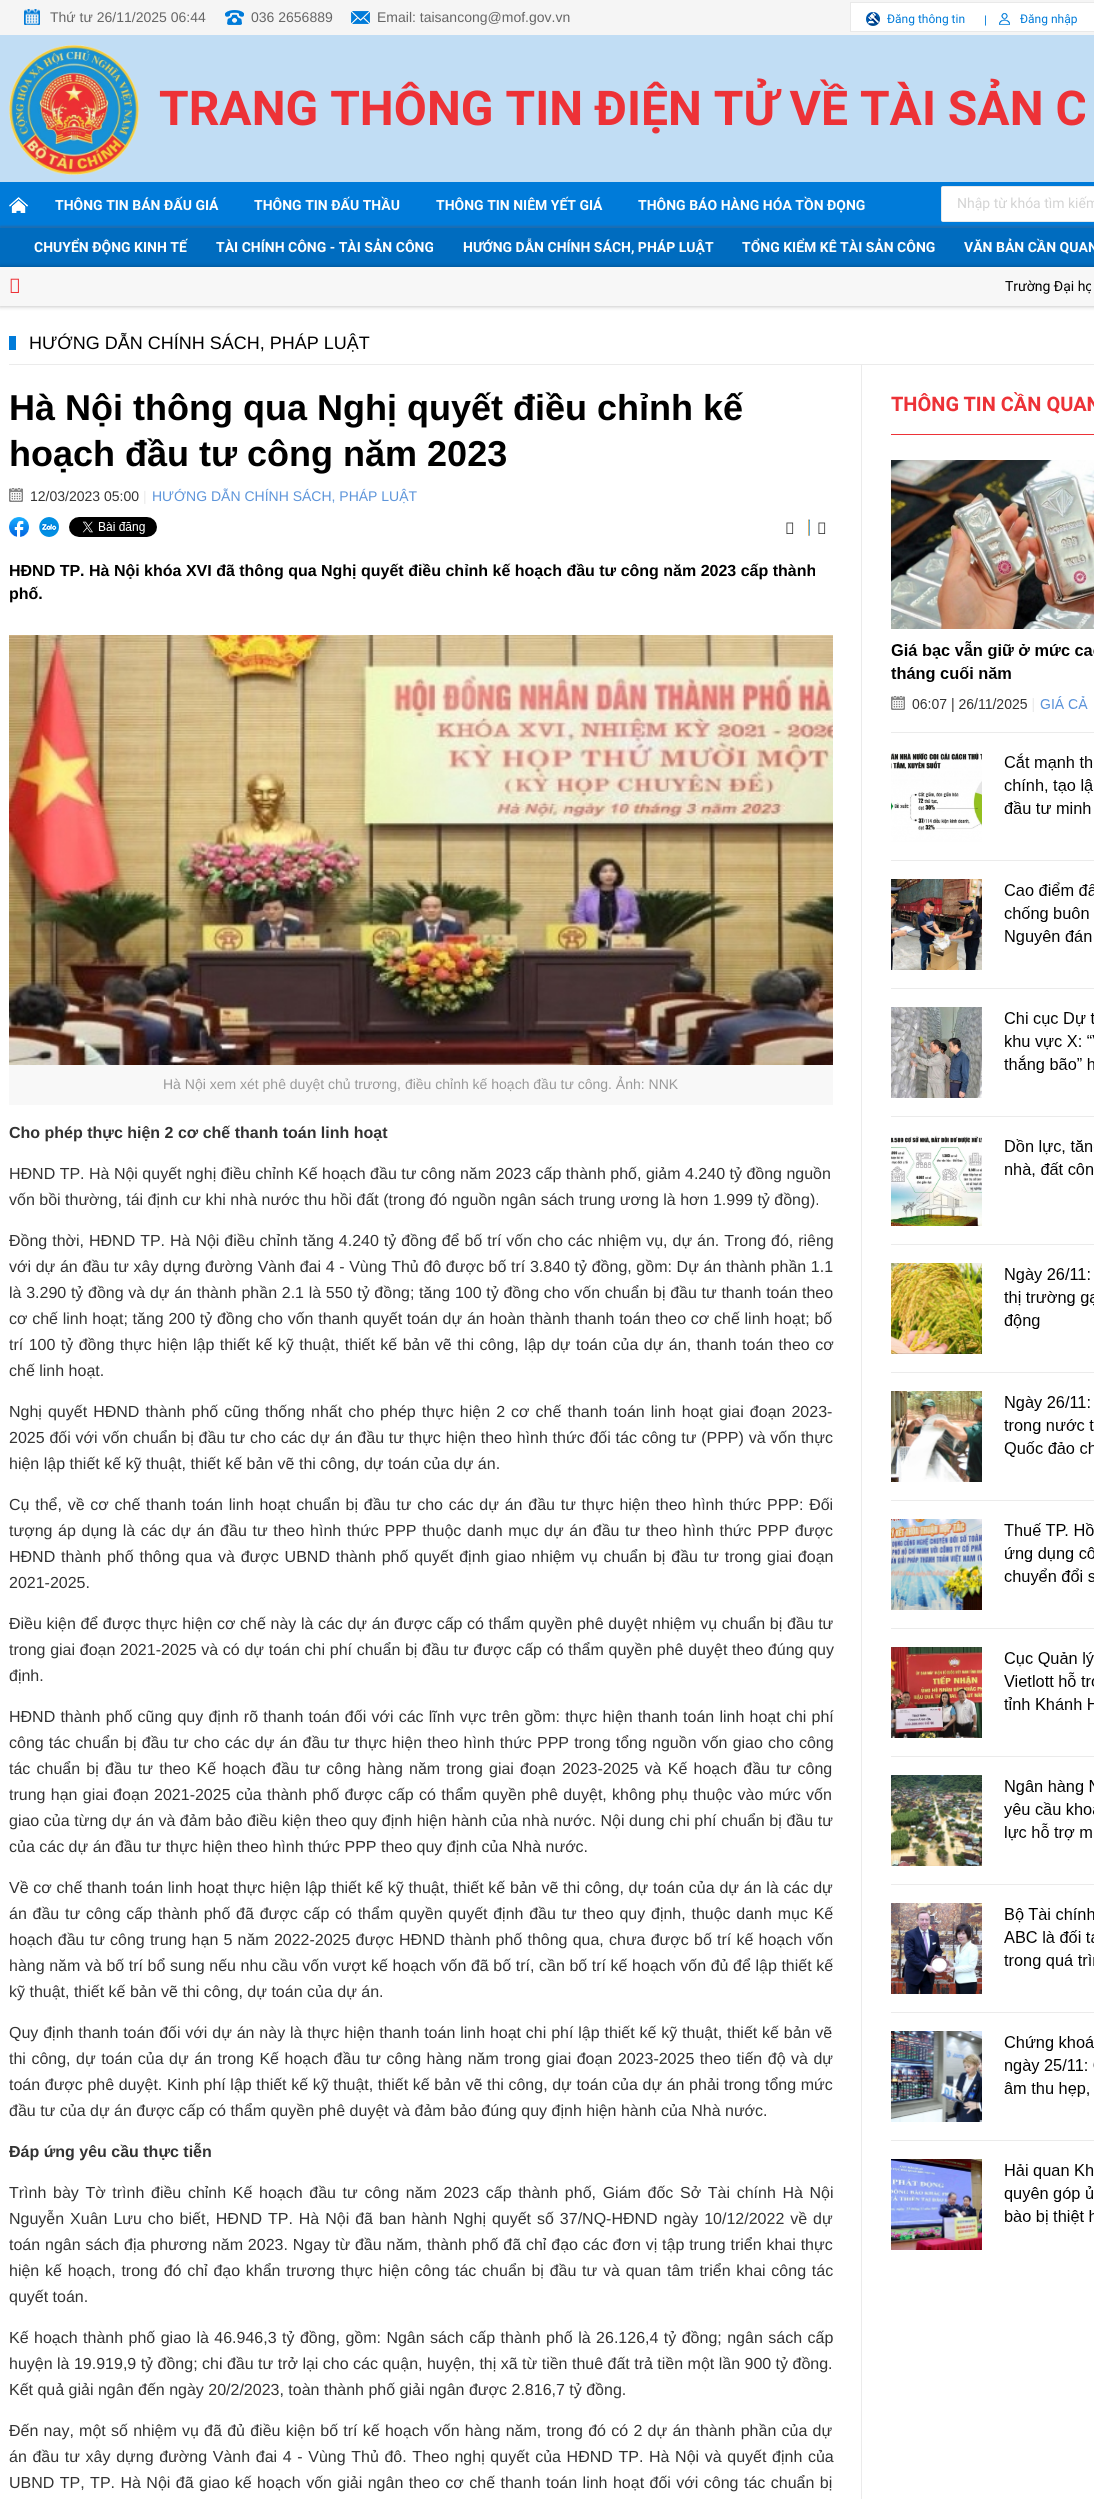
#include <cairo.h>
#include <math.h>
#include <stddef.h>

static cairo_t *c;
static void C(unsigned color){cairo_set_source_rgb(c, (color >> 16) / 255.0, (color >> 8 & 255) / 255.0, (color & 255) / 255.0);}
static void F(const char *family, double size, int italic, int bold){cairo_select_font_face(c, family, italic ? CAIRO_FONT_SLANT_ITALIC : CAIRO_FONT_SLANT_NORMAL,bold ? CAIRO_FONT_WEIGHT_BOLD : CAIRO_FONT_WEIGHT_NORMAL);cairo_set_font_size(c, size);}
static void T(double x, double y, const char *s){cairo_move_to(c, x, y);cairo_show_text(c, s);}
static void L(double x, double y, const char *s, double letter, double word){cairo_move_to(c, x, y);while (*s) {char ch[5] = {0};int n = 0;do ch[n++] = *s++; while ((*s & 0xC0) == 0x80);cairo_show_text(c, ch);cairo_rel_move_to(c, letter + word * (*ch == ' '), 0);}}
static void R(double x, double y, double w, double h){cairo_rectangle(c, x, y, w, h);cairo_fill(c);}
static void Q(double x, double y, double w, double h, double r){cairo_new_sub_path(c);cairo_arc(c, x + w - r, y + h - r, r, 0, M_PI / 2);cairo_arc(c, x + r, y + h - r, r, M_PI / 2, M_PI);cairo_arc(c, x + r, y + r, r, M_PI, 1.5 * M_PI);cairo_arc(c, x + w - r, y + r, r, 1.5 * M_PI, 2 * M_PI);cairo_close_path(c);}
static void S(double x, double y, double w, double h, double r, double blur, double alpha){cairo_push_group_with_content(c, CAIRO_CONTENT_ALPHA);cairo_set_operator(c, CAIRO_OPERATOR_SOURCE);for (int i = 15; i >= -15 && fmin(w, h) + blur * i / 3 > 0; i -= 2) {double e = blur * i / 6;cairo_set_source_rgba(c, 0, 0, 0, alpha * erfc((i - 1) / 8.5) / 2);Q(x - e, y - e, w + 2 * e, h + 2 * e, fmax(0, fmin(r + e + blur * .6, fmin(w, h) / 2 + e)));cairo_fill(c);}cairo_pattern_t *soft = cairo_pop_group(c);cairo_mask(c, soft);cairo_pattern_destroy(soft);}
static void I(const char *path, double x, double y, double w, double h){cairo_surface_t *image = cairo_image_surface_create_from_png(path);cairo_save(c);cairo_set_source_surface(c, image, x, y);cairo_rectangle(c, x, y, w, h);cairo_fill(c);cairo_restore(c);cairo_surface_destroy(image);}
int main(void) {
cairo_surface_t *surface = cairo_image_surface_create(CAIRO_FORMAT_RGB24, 1094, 2499);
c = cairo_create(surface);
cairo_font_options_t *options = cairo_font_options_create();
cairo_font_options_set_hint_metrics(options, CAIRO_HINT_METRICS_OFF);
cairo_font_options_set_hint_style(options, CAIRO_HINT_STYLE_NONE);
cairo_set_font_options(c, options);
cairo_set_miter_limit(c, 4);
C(0xffffff);
cairo_paint(c);
C(0xf5f5f5);
R(0,0,1094,35);
I("1.png",24,9,16,16);
F("Liberation Sans",14,0,0);
C(0x666666);
T(50,22,"Thứ tư 26/11/2025 06:44");
I("2.png",225,10,19,15);
T(251,22,"036 2656889");
I("3.png",351,11,19,13);
T(377,22,"Email: taisancong@mof.gov.vn");
C(0xffffff);
cairo_rectangle(c,850.5,2.5,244,29);
cairo_fill_preserve(c);
C(0xe9e9e9);
cairo_set_line_width(c,1);
cairo_stroke(c);
I("4.png",866,12,14,14);
F("Roboto",12,0,0);
C(0x007bd9);
T(887,23,"Đăng thông tin");
I("5.png",999,13,11,12);
T(984,24,"|");
T(1020,23,"Đăng nhập");
C(0xc1ddf4);
R(0,35,1094,147);
I("6.png",9,45,130,130);
F("Roboto",48,0,1);
C(0xed3237);
T(159,125,"TRANG THÔNG TIN ĐIỆN TỬ VỀ TÀI SẢN C");
C(0x007bd9);
R(0,182,1094,46);
I("7.png",9,197,19,16);
F("Roboto",14,0,1);
C(0xffffff);
T(55,210,"THÔNG TIN BÁN ĐẤU GIÁ");
T(254,210,"THÔNG TIN ĐẤU THẦU");
T(436,210,"THÔNG TIN NIÊM YẾT GIÁ");
T(638,210,"THÔNG BÁO HÀNG HÓA TỒN ĐỌNG");
Q(941.5,186.5,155,35,1.5);
C(0xe9e9e9);
cairo_stroke(c);
C(0xffffff);
R(942,187,152,34);
F("Roboto",14,0,0);
C(0xd3d3d3);
T(957,208,"Nhập từ khóa tìm kiếm");
C(0x684949);
S(0,226,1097,39,0,1,.3);
C(0x006cbf);
R(0,228,1094,39);
F("Roboto",14,0,1);
C(0xffffff);
T(34,252,"CHUYỂN ĐỘNG KINH TẾ");
T(216,252,"TÀI CHÍNH CÔNG - TÀI SẢN CÔNG");
T(463,252,"HƯỚNG DẪN CHÍNH SÁCH, PHÁP LUẬT");
T(742,252,"TỔNG KIỂM KÊ TÀI SẢN CÔNG");
T(964,252,"VĂN BẢN CẦN QUAN");
C(0x000000);
S(0,267,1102,39,0,2.5,.3);
C(0xf7f7f7);
R(0,267,1094,39);
I("8.png",10,278,9,15);
cairo_save(c);
cairo_rectangle(c,29,267,1062,39);
cairo_clip(c);
F("Roboto",14,0,0);
C(0x000000);
T(1005,291,"Trường Đại họ");
cairo_restore(c);
C(0xebebeb);
R(9,364,1085,1);
C(0x007bd9);
R(9,336,7,14);
F("Liberation Sans",18,0,0);
C(0x000000);
T(29,349,"HƯỚNG DẪN CHÍNH SÁCH, PHÁP LUẬT");
C(0xebebeb);
R(861,365,1,2134);
F("Liberation Sans",36,0,1);
C(0x000000);
T(9,420,"Hà Nội thông qua Nghị quyết điều chỉnh kế");
T(9,466,"hoạch đầu tư công năm 2023");
I("9.png",9,488,14,14);
F("Liberation Sans",14,0,0);
C(0x333333);
T(30,501,"12/03/2023 05:00");
C(0xeaeaea);
T(143,501,"|");
C(0x5d95da);
T(152,501,"HƯỚNG DẪN CHÍNH SÁCH, PHÁP LUẬT");
I("10.png",9,517,20,20);
I("11.png",39,517,20,20);
I("12.png",69,517,88,20);
I("13.png",786,522,8,12);
I("14.png",808,519,2,17);
I("13.png",818,522,8,12);
F("Liberation Sans",16,0,1);
C(0x000000);
T(9,576,"HĐND TP. Hà Nội khóa XVI đã thông qua Nghị quyết điều chỉnh kế hoạch đầu tư công năm 2023 cấp thành");
T(9,599,"phố.");
I("15.png",9,635,824,430);
C(0xf8f8f8);
R(9,1065,824,40);
F("Liberation Sans",14,0,0);
C(0x999999);
T(163,1089,"Hà Nội xem xét phê duyệt chủ trương, điều chỉnh kế hoạch đầu tư công. Ảnh: NNK");
F("Liberation Sans",16,0,1);
C(0x333333);
T(9,1138,"Cho phép thực hiện 2 cơ chế thanh toán linh hoạt");
F("Liberation Sans",16,0,0);
T(9,1179,"HĐND TP. Hà Nội quyết nghị điều chỉnh Kế hoạch đầu tư công năm 2023 cấp thành phố, giảm 4.240 tỷ đồng nguồn");
T(9,1205,"vốn bồi thường, tái định cư khi nhà nước thu hồi đất (trong đó nguồn ngân sách trung ương là hơn 1.999 tỷ đồng).");
L(9,1246,"Đồng thời, HĐND TP. Hà Nội điều chỉnh tăng 4.240 tỷ đồng để bố trí vốn cho các nhiệm vụ, dự án. Trong đó, riêng",0,.5);
L(9,1272,"với dự án đầu tư xây dựng đường Vành đai 4 - Vùng Thủ đô được bố trí 3.840 tỷ đồng, gồm: Dự án thành phần 1.1",0,.2);
L(9,1298,"là 3.290 tỷ đồng và dự án thành phần 2.1 là 550 tỷ đồng; tăng 100 tỷ đồng cho vốn chuẩn bị đầu tư thanh toán theo",0,.25);
L(9,1324,"cơ chế linh hoạt; tăng 200 tỷ đồng cho vốn thanh quyết toán dự án hoàn thành thanh toán theo cơ chế linh hoạt; bố",0,.25);
L(9,1350,"trí 100 tỷ đồng thực hiện lập thiết kế kỹ thuật, thiết kế bản vẽ thi công, lập dự toán của dự án, thanh toán theo cơ",0,1);
T(9,1376,"chế linh hoạt.");
L(9,1417,"Nghị quyết HĐND thành phố cũng thống nhất cho phép thực hiện 2 cơ chế thanh toán linh hoạt giai đoạn 2023-",0,1.6);
L(9,1443,"2025 đối với vốn chuẩn bị đầu tư cho các dự án đầu tư thực hiện theo hình thức đối tác công tư (PPP) và vốn thực",0,.35);
T(9,1469,"hiện lập thiết kế kỹ thuật, thiết kế bản vẽ thi công, dự toán của dự án.");
L(9,1510,"Cụ thể, về cơ chế thanh toán linh hoạt chuẩn bị đầu tư cho các dự án đầu tư thực hiện theo hình thức PPP: Đối",0,1.3);
L(9,1536,"tượng áp dụng là các dự án đầu tư theo hình thức PPP thuộc danh mục dự án đầu tư theo hình thức PPP được",0,1.2);
L(9,1562,"HĐND thành phố thông qua và được UBND thành phố quyết định giao nhiệm vụ chuẩn bị đầu tư trong giai đoạn",0,1.4);
T(9,1588,"2021-2025.");
L(9,1629,"Điều kiện để được thực hiện cơ chế này là các dự án được cấp có thẩm quyền phê duyệt nhiệm vụ chuẩn bị đầu tư",0,.15);
L(9,1655,"trong giai đoạn 2021-2025 và có dự toán chi phí chuẩn bị đầu tư được cấp có thẩm quyền phê duyệt theo đúng quy",0,.25);
T(9,1681,"định.");
L(9,1722,"HĐND thành phố cũng quy định rõ thanh toán đối với các lĩnh vực trên gồm: thực hiện thanh toán linh hoạt chi phí",0,.75);
L(9,1748,"công tác chuẩn bị đầu tư cho các dự án đầu tư thực hiện theo hình thức PPP trong tổng nguồn vốn giao cho công",0,.7);
L(9,1774,"tác chuẩn bị đầu tư theo Kế hoạch đầu tư công hàng năm trong giai đoạn 2023-2025 và Kế hoạch đầu tư công",0,1.75);
L(9,1800,"trung hạn giai đoạn 2021-2025 của thành phố được cấp có thẩm quyền phê duyệt, không phụ thuộc vào mức vốn",0,.9);
L(9,1826,"giao của từng dự án và đảm bảo điều kiện theo quy định hiện hành của nhà nước. Nội dung chi phí chuẩn bị đầu tư",0,.15);
T(9,1852,"của các dự án đầu tư thực hiện theo hình thức PPP theo quy định của Nhà nước.");
L(9,1893,"Về cơ chế thanh toán linh hoạt thực hiện lập thiết kế kỹ thuật, thiết kế bản vẽ thi công, dự toán của dự án là các dự",0,.3);
L(9,1919,"án đầu tư công cấp thành phố đã được cấp có thẩm quyền quyết định đầu tư theo quy định, thuộc danh mục Kế",0,1.3);
L(9,1945,"hoạch đầu tư công trung hạn 5 năm 2022-2025 được HĐND thành phố thông qua, chưa được bố trí kế hoạch vốn",0,.75);
L(9,1971,"hàng năm và bố trí bổ sung nếu nhu cầu vốn vượt kế hoạch vốn đã bố trí, cần bố trí kế hoạch vốn đủ để lập thiết kế",0,.15);
T(9,1997,"kỹ thuật, thiết kế bản vẽ thi công, dự toán của dự án.");
L(9,2038,"Quy định thanh toán đối với dự án này là thực hiện thanh toán linh hoạt chi phí lập thiết kế kỹ thuật, thiết kế bản vẽ",0,.4);
L(9,2064,"thi công, dự toán của dự án trong Kế hoạch đầu tư công hàng năm trong giai đoạn 2023-2025 theo tiến độ và dự",0,1.05);
L(9,2090,"toán được phê duyệt. Kinh phí lập thiết kế kỹ thuật, thiết kế bản vẽ thi công, dự toán của dự án phải trong tổng mức",0,.15);
T(9,2116,"đầu tư của dự án được cấp có thẩm quyền phê duyệt và đảm bảo đúng quy định hiện hành của Nhà nước.");
F("Liberation Sans",16,0,1);
T(9,2157,"Đáp ứng yêu cầu thực tiễn");
F("Liberation Sans",16,0,0);
L(9,2198,"Trình bày Tờ trình điều chỉnh Kế hoạch đầu tư công năm 2023 cấp thành phố, Giám đốc Sở Tài chính Hà Nội",0,2.2);
L(9,2224,"Nguyễn Xuân Lưu cho biết, HĐND TP. Hà Nội đã ban hành Nghị quyết số 37/NQ-HĐND ngày 10/12/2022 về dự",0,1.5);
L(9,2250,"toán ngân sách địa phương năm 2023. Ngay từ đầu năm, thành phố đã chỉ đạo các đơn vị tập trung triển khai thực",0,.4);
L(9,2276,"hiện kế hoạch, trong đó chỉ đạo khẩn trương thực hiện công tác chuẩn bị đầu tư và quan tâm triển khai công tác",0,1.3);
T(9,2302,"quyết toán.");
L(9,2343,"Kế hoạch thành phố giao là 46.946,3 tỷ đồng, gồm: Ngân sách cấp thành phố là 26.126,4 tỷ đồng; ngân sách cấp",0,1);
T(9,2369,"huyện là 19.919,9 tỷ đồng; chi đầu tư trở lại cho các quận, huyện, thị xã từ tiền thuê đất trả tiền một lần 900 tỷ đồng.");
T(9,2395,"Kết quả giải ngân đến ngày 20/2/2023, toàn thành phố giải ngân được 2.816,7 tỷ đồng.");
L(9,2436,"Đến nay, một số nhiệm vụ đã đủ điều kiện bố trí kế hoạch vốn hàng năm, trong đó có 2 dự án thành phần của dự",0,.8);
L(9,2462,"án đầu tư xây dựng đường Vành đai 4 - Vùng Thủ đô. Theo nghị quyết của HĐND TP. Hà Nội và quyết định của",0,1.2);
L(9,2488,"UBND TP, TP. Hà Nội đã giao kế hoạch vốn giải ngân theo cơ chế thanh toán linh hoạt đối với công tác chuẩn bị",0,1);
I("16.png",891,392,203,1858);
cairo_surface_write_to_png(surface, "o.png");
cairo_font_options_destroy(options);
cairo_destroy(c);
cairo_surface_destroy(surface);
return 0;
}
